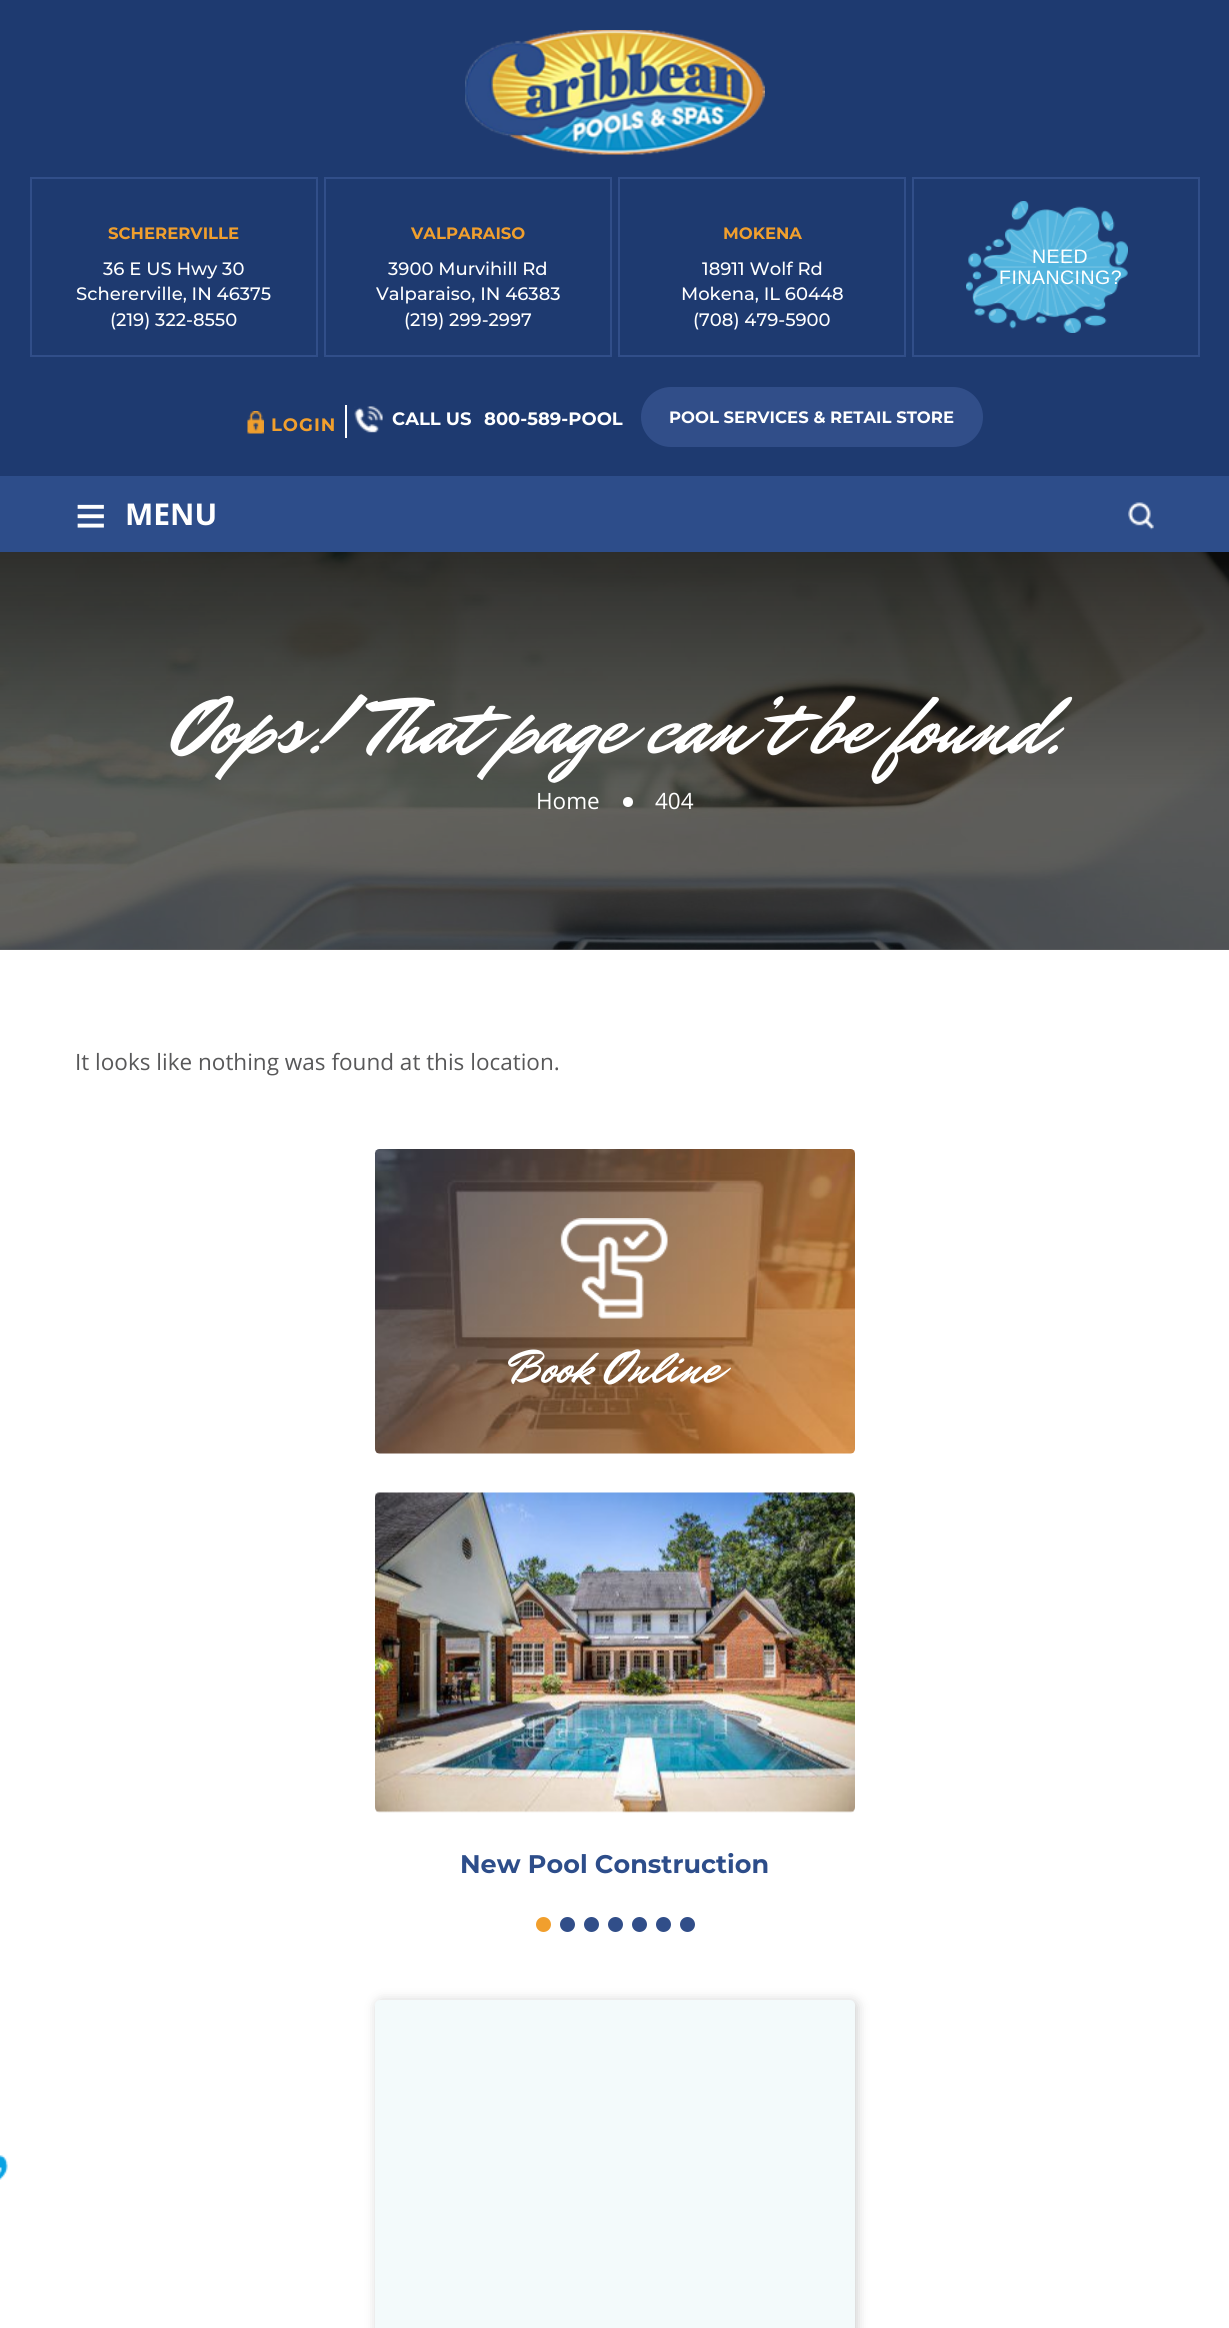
#include <cairo.h>
#include <math.h>
#include <stddef.h>

static cairo_t *c;
static void C(unsigned color){cairo_set_source_rgb(c, (color >> 16) / 255.0, (color >> 8 & 255) / 255.0, (color & 255) / 255.0);}
static void F(const char *family, double size, int italic, int bold){cairo_select_font_face(c, family, italic ? CAIRO_FONT_SLANT_ITALIC : CAIRO_FONT_SLANT_NORMAL,bold ? CAIRO_FONT_WEIGHT_BOLD : CAIRO_FONT_WEIGHT_NORMAL);cairo_set_font_size(c, size);}
static void T(double x, double y, const char *s){cairo_move_to(c, x, y);cairo_show_text(c, s);}
static void L(double x, double y, const char *s, double letter, double word){cairo_move_to(c, x, y);while (*s) {char ch[5] = {0};int n = 0;do ch[n++] = *s++; while ((*s & 0xC0) == 0x80);cairo_show_text(c, ch);cairo_rel_move_to(c, letter + word * (*ch == ' '), 0);}}
static void R(double x, double y, double w, double h){cairo_rectangle(c, x, y, w, h);cairo_fill(c);}
static void Q(double x, double y, double w, double h, double r){cairo_new_sub_path(c);cairo_arc(c, x + w - r, y + h - r, r, 0, M_PI / 2);cairo_arc(c, x + r, y + h - r, r, M_PI / 2, M_PI);cairo_arc(c, x + r, y + r, r, M_PI, 1.5 * M_PI);cairo_arc(c, x + w - r, y + r, r, 1.5 * M_PI, 2 * M_PI);cairo_close_path(c);}
static void S(double x, double y, double w, double h, double r, double blur, double alpha){cairo_push_group_with_content(c, CAIRO_CONTENT_ALPHA);cairo_set_operator(c, CAIRO_OPERATOR_SOURCE);for (int i = 15; i >= -15 && fmin(w, h) + blur * i / 3 > 0; i -= 2) {double e = blur * i / 6;cairo_set_source_rgba(c, 0, 0, 0, alpha * erfc((i - 1) / 8.5) / 2);Q(x - e, y - e, w + 2 * e, h + 2 * e, fmax(0, fmin(r + e + blur * .6, fmin(w, h) / 2 + e)));cairo_fill(c);}cairo_pattern_t *soft = cairo_pop_group(c);cairo_mask(c, soft);cairo_pattern_destroy(soft);}
static void I(const char *path, double x, double y, double w, double h){cairo_surface_t *image = cairo_image_surface_create_from_png(path);cairo_save(c);cairo_set_source_surface(c, image, x, y);cairo_rectangle(c, x, y, w, h);cairo_fill(c);cairo_restore(c);cairo_surface_destroy(image);}
int main(void) {
cairo_surface_t *surface = cairo_image_surface_create(CAIRO_FORMAT_RGB24, 1229, 2328);
c = cairo_create(surface);
cairo_font_options_t *options = cairo_font_options_create();
cairo_font_options_set_hint_metrics(options, CAIRO_HINT_METRICS_OFF);
cairo_font_options_set_hint_style(options, CAIRO_HINT_STYLE_NONE);
cairo_set_font_options(c, options);
cairo_set_miter_limit(c, 4);
cairo_pattern_t *gradient;
C(0xffffff);
cairo_paint(c);
C(0x1e3a70);
R(0,0,1229,476);
I("1.png",465,30,300,125);
cairo_rectangle(c,31,178,286,178);
C(0x314e89);
cairo_stroke(c);
F("Montserrat",16.5,0,1);
C(0xf19f2d);
T(108,239,"SCHERERVILLE");
F("Montserrat Medium",18,0,0);
C(0xffffff);
T(103,275,"36 E US Hwy 30");
T(76,300,"Schererville, IN 46375");
T(110,326,"(219) 322-8550");
cairo_rectangle(c,325,178,286,178);
C(0x314e89);
cairo_stroke(c);
F("Montserrat",16.5,0,1);
C(0xf19f2d);
T(411,239,"VALPARAISO");
F("Montserrat Medium",18,0,0);
C(0xffffff);
T(388,275,"3900 Murvihill Rd");
T(376,300,"Valparaiso, IN 46383");
T(404,326,"(219) 299-2997");
cairo_rectangle(c,619,178,286,178);
C(0x314e89);
cairo_stroke(c);
F("Montserrat",16.5,0,1);
C(0xf19f2d);
T(723,239,"MOKENA");
F("Montserrat Medium",18,0,0);
C(0xffffff);
T(702,275,"18911 Wolf Rd");
T(681,300,"Mokena, IL 60448");
T(693,326,"(708) 479-5900");
cairo_rectangle(c,913,178,286,178);
C(0x314e89);
cairo_stroke(c);
I("2.png",966,201,162,132);
F("Liberation Sans",19.5,0,0);
C(0xffffff);
L(1032,263,"NEED",.5,0);
L(999,284,"FINANCING?",.5,0);
R(345,405,2,33);
I("3.png",247,411,17,23);
F("Montserrat",18,0,1);
C(0xf19f2d);
L(271,431,"LOGIN",1,0);
I("4.png",354,406,29,27);
C(0xffffff);
T(392,425,"CALL US");
T(484,425,"800-589-POOL");
C(0x314e89);
Q(641,387,342,60,30);
cairo_fill(c);
F("Montserrat",16.5,0,1);
C(0xffffff);
T(669,423,"POOL SERVICES & RETAIL STORE");
C(0x2d4d8a);
R(0,476,1229,76);
F("Liberation Sans",54,0,0);
C(0xffffff);
T(75,534,"≡");
F("Open Sans",30,0,1);
T(125,525,"MENU");
I("5.png",1128,502,26,28);
I("6.png",0,552,1229,398);
gradient = cairo_pattern_create_linear(615,552,615,950);
cairo_pattern_add_color_stop_rgba(gradient,0,0,0,0,.8);
cairo_pattern_add_color_stop_rgba(gradient,.6,0,0,0,.6);
cairo_pattern_add_color_stop_rgba(gradient,1,0,0,0,.6);
cairo_set_source(c,gradient);
cairo_pattern_destroy(gradient);
R(0,552,1229,398);
F("Mr Dafoe",82.5,0,0);
C(0xffffff);
T(172,752,"Oops! That page can’t be found.");
F("Open Sans",22.5,0,0);
T(536,809,"Home");
cairo_new_path(c);
cairo_arc(c,628,802,5,0,2 * M_PI);
cairo_fill(c);
T(655,809,"404");
C(0x585859);
T(75,1070,"It looks like nothing was found at this location.");
I("7.png",374,1149,481,305);
I("8.png",560,1218,108,101);
F("Mr Dafoe",48,0,0);
C(0xffffff);
T(509,1382,"Book Online");
I("9.png",375,1492,480,321);
F("Montserrat",25.5,0,1);
C(0x2d4d8a);
T(460,1873,"New Pool Construction");
C(0xf19f2d);
cairo_new_path(c);
cairo_arc(c,543.5,1924.5,7.5,0,2 * M_PI);
cairo_fill(c);
C(0x314e89);
cairo_arc(c,567.5,1924.5,7.5,0,2 * M_PI);
cairo_fill(c);
cairo_arc(c,591.5,1924.5,7.5,0,2 * M_PI);
cairo_fill(c);
cairo_arc(c,615.5,1924.5,7.5,0,2 * M_PI);
cairo_fill(c);
cairo_arc(c,639.5,1924.5,7.5,0,2 * M_PI);
cairo_fill(c);
cairo_arc(c,663.5,1924.5,7.5,0,2 * M_PI);
cairo_fill(c);
cairo_arc(c,687.5,1924.5,7.5,0,2 * M_PI);
cairo_fill(c);
C(0x000000);
S(377,2001,480,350,5,6,.2);
C(0xf3fafb);
Q(375,2000,480,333,5);
cairo_fill(c);
I("10.png",0,2155,8,25);
cairo_surface_write_to_png(surface, "o.png");
cairo_font_options_destroy(options);
cairo_destroy(c);
cairo_surface_destroy(surface);
return 0;
}
